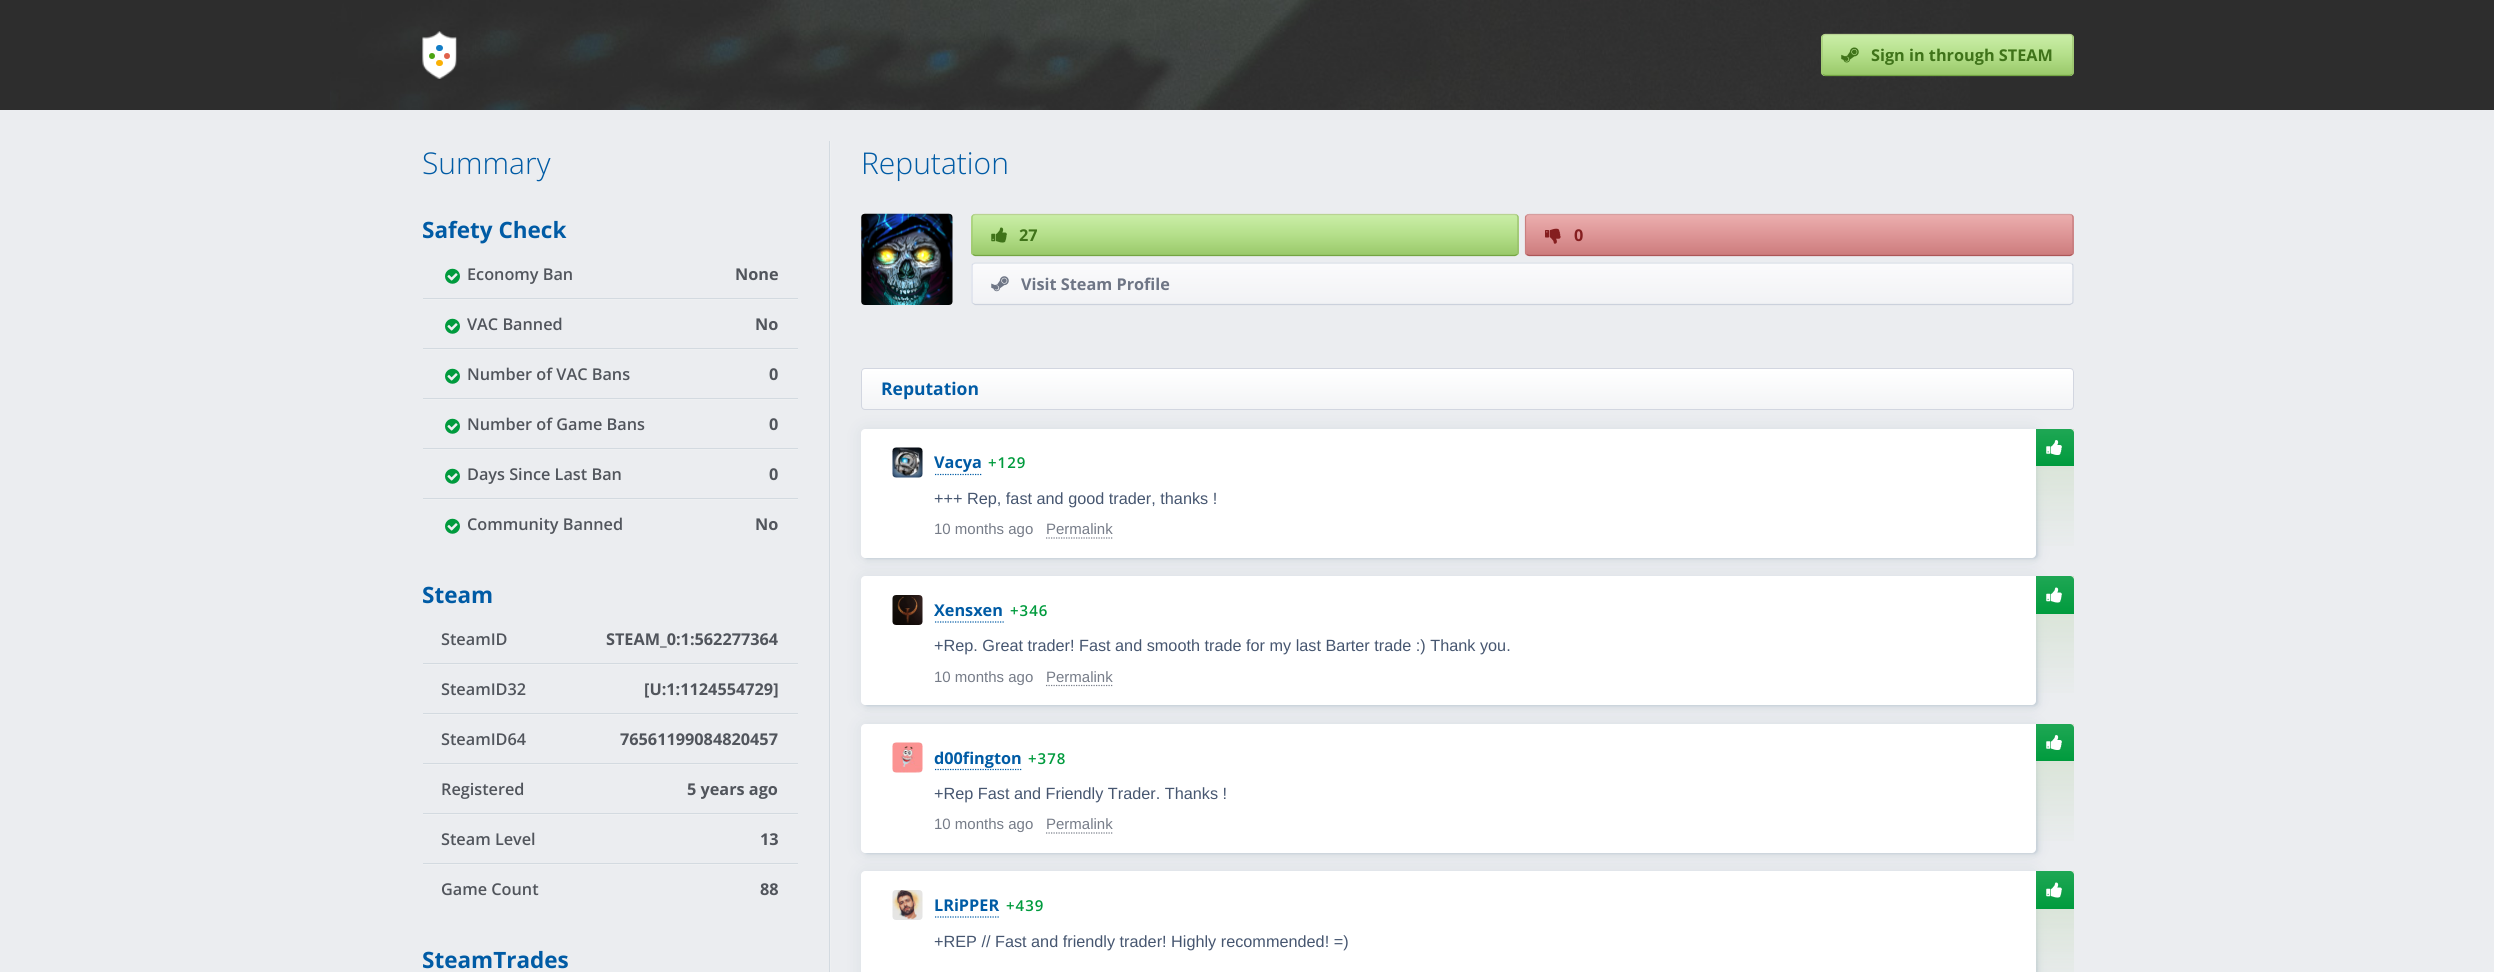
#include <cairo.h>
#include <math.h>
#include <stddef.h>

static cairo_t *c;
static void C(unsigned color){cairo_set_source_rgb(c, (color >> 16) / 255.0, (color >> 8 & 255) / 255.0, (color & 255) / 255.0);}
static void F(const char *family, double size, int italic, int bold){cairo_select_font_face(c, family, italic ? CAIRO_FONT_SLANT_ITALIC : CAIRO_FONT_SLANT_NORMAL,bold ? CAIRO_FONT_WEIGHT_BOLD : CAIRO_FONT_WEIGHT_NORMAL);cairo_set_font_size(c, size);}
static void T(double x, double y, const char *s){cairo_move_to(c, x, y);cairo_show_text(c, s);}
static void L(double x, double y, const char *s, double letter, double word){cairo_move_to(c, x, y);while (*s) {char ch[5] = {0};int n = 0;do ch[n++] = *s++; while ((*s & 0xC0) == 0x80);cairo_show_text(c, ch);cairo_rel_move_to(c, letter + word * (*ch == ' '), 0);}}
static void R(double x, double y, double w, double h){cairo_rectangle(c, x, y, w, h);cairo_fill(c);}
static void Q(double x, double y, double w, double h, double r){cairo_new_sub_path(c);cairo_arc(c, x + w - r, y + h - r, r, 0, M_PI / 2);cairo_arc(c, x + r, y + h - r, r, M_PI / 2, M_PI);cairo_arc(c, x + r, y + r, r, M_PI, 1.5 * M_PI);cairo_arc(c, x + w - r, y + r, r, 1.5 * M_PI, 2 * M_PI);cairo_close_path(c);}
static void S(double x, double y, double w, double h, double r, double blur, double alpha){cairo_push_group_with_content(c, CAIRO_CONTENT_ALPHA);cairo_set_operator(c, CAIRO_OPERATOR_SOURCE);for (int i = 15; i >= -15 && fmin(w, h) + blur * i / 3 > 0; i -= 2) {double e = blur * i / 6;cairo_set_source_rgba(c, 0, 0, 0, alpha * erfc((i - 1) / 8.5) / 2);Q(x - e, y - e, w + 2 * e, h + 2 * e, fmax(0, fmin(r + e + blur * .6, fmin(w, h) / 2 + e)));cairo_fill(c);}cairo_pattern_t *soft = cairo_pop_group(c);cairo_mask(c, soft);cairo_pattern_destroy(soft);}
static void I(const char *path, double x, double y, double w, double h){cairo_surface_t *image = cairo_image_surface_create_from_png(path);cairo_save(c);cairo_set_source_surface(c, image, x, y);cairo_rectangle(c, x, y, w, h);cairo_fill(c);cairo_restore(c);cairo_surface_destroy(image);}
int main(void) {
cairo_surface_t *surface = cairo_image_surface_create(CAIRO_FORMAT_RGB24, 2494, 972);
c = cairo_create(surface);
cairo_font_options_t *options = cairo_font_options_create();
cairo_font_options_set_hint_metrics(options, CAIRO_HINT_METRICS_OFF);
cairo_font_options_set_hint_style(options, CAIRO_HINT_STYLE_NONE);
cairo_set_font_options(c, options);
cairo_set_miter_limit(c, 4);
cairo_pattern_t *gradient;
C(0x2d2d2d);
cairo_paint(c);
I("1.png",330,0,1640,110);
I("2.png",422,31,35,48);
C(0x137dc6);
Q(436,45,7,6,3);
cairo_fill(c);
C(0x4ba414);
cairo_arc(c,432,56,3,0,2 * M_PI);
cairo_fill(c);
C(0xe0624c);
cairo_arc(c,447,56,3,0,2 * M_PI);
cairo_fill(c);
C(0xfab005);
Q(436,60,7,6,3);
cairo_fill(c);
cairo_save(c);
Q(1821,34,253,42,4);
cairo_clip(c);
gradient = cairo_pattern_create_linear(1948,-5,1948,35);
cairo_pattern_add_color_stop_rgba(gradient,0,0.792,0.933,0.655,1);
cairo_pattern_add_color_stop_rgba(gradient,.5,0.706,0.875,0.541,1);
cairo_pattern_add_color_stop_rgba(gradient,1,0.604,0.788,0.416,1);
cairo_set_source(c,gradient);
cairo_pattern_destroy(gradient);
R(1821,34,253,1);
gradient = cairo_pattern_create_linear(1948,35,1948,75);
cairo_pattern_add_color_stop_rgba(gradient,0,0.792,0.933,0.655,1);
cairo_pattern_add_color_stop_rgba(gradient,.5,0.706,0.875,0.541,1);
cairo_pattern_add_color_stop_rgba(gradient,1,0.604,0.788,0.416,1);
cairo_set_source(c,gradient);
cairo_pattern_destroy(gradient);
R(1821,35,253,40);
gradient = cairo_pattern_create_linear(1948,75,1948,115);
cairo_pattern_add_color_stop_rgba(gradient,0,0.792,0.933,0.655,1);
cairo_pattern_add_color_stop_rgba(gradient,.5,0.706,0.875,0.541,1);
cairo_pattern_add_color_stop_rgba(gradient,1,0.604,0.788,0.416,1);
cairo_set_source(c,gradient);
cairo_pattern_destroy(gradient);
R(1821,75,253,1);
cairo_restore(c);
cairo_new_path(c);
cairo_move_to(c,1823,35.5);
cairo_line_to(c,1825,34.5);
cairo_line_to(c,2070,34.5);
cairo_line_to(c,2072,35.5);
C(0xb9d393);
cairo_set_line_width(c,1.2);
cairo_stroke(c);
cairo_new_path(c);
cairo_move_to(c,2072,35.5);
cairo_curve_to(c,2073,36,2073,36.5,2073,37.5);
cairo_line_to(c,2073,72.5);
cairo_curve_to(c,2073,73.5,2073,74,2072,74.5);
C(0x96bc69);
cairo_stroke(c);
cairo_new_path(c);
cairo_move_to(c,2072,74.5);
cairo_line_to(c,2070,75.5);
cairo_line_to(c,1825,75.5);
cairo_line_to(c,1823,74.5);
C(0x73a442);
cairo_stroke(c);
cairo_new_path(c);
cairo_move_to(c,1823,74.5);
cairo_curve_to(c,1822,74,1822,73.5,1822,72.5);
cairo_line_to(c,1822,37.5);
cairo_curve_to(c,1822,36.5,1822,36,1823,35.5);
C(0xa0c870);
cairo_stroke(c);
I("3.png",1841,47,18,16);
F("Open Sans",16.25,0,1);
C(0x3f7319);
T(1871,61,"Sign in through STEAM");
C(0xebedf0);
R(0,110,2494,862);
F("Open Sans Light",30,0,0);
C(0x005ba5);
T(422,174,"Summary");
F("Open Sans",22.5,0,1);
T(422,238,"Safety Check");
C(0xd3dae0);
R(423,298,375,1);
I("4.png",445,268,15,16);
F("Open Sans SemiBold",16.25,0,0);
C(0x51555c);
T(467,280,"Economy Ban");
F("Open Sans",16.25,0,1);
T(735,280,"None");
C(0xeef0f2);
R(423,299,375,1);
C(0xd3dae0);
R(423,348,375,1);
I("4.png",445,318,15,16);
F("Open Sans SemiBold",16.25,0,0);
C(0x51555c);
T(467,330,"VAC Banned");
F("Open Sans",16.25,0,1);
T(755,330,"No");
C(0xeef0f2);
R(423,349,375,1);
C(0xd3dae0);
R(423,398,375,1);
I("4.png",445,368,15,16);
F("Open Sans SemiBold",16.25,0,0);
C(0x51555c);
T(467,380,"Number of VAC Bans");
F("Open Sans",16.25,0,1);
T(769,380,"0");
C(0xeef0f2);
R(423,399,375,1);
C(0xd3dae0);
R(423,448,375,1);
I("4.png",445,418,15,16);
F("Open Sans SemiBold",16.25,0,0);
C(0x51555c);
T(467,430,"Number of Game Bans");
F("Open Sans",16.25,0,1);
T(769,430,"0");
C(0xeef0f2);
R(423,449,375,1);
C(0xd3dae0);
R(423,498,375,1);
I("4.png",445,468,15,16);
F("Open Sans SemiBold",16.25,0,0);
C(0x51555c);
T(467,480,"Days Since Last Ban");
F("Open Sans",16.25,0,1);
T(769,480,"0");
C(0xeef0f2);
R(423,499,375,1);
I("4.png",445,518,15,16);
F("Open Sans SemiBold",16.25,0,0);
C(0x51555c);
T(467,530,"Community Banned");
F("Open Sans",16.25,0,1);
T(755,530,"No");
F("Open Sans",22.5,0,1);
C(0x005ba5);
T(422,603,"Steam");
C(0xd3dae0);
R(423,663,375,1);
F("Open Sans SemiBold",16.25,0,0);
C(0x51555c);
T(441,645,"SteamID");
F("Open Sans",16.25,0,1);
T(606,645,"STEAM_0:1:562277364");
C(0xeef0f2);
R(423,664,375,1);
C(0xd3dae0);
R(423,713,375,1);
F("Open Sans SemiBold",16.25,0,0);
C(0x51555c);
T(441,695,"SteamID32");
F("Open Sans",16.25,0,1);
T(644,695,"[U:1:1124554729]");
C(0xeef0f2);
R(423,714,375,1);
C(0xd3dae0);
R(423,763,375,1);
F("Open Sans SemiBold",16.25,0,0);
C(0x51555c);
T(441,745,"SteamID64");
F("Open Sans",16.25,0,1);
T(620,745,"76561199084820457");
C(0xeef0f2);
R(423,764,375,1);
C(0xd3dae0);
R(423,813,375,1);
F("Open Sans SemiBold",16.25,0,0);
C(0x51555c);
T(441,795,"Registered");
F("Open Sans",16.25,0,1);
T(687,795,"5 years ago");
C(0xeef0f2);
R(423,814,375,1);
C(0xd3dae0);
R(423,863,375,1);
F("Open Sans SemiBold",16.25,0,0);
C(0x51555c);
T(441,845,"Steam Level");
F("Open Sans",16.25,0,1);
T(760,845,"13");
C(0xeef0f2);
R(423,864,375,1);
F("Open Sans SemiBold",16.25,0,0);
C(0x51555c);
T(441,895,"Game Count");
F("Open Sans",16.25,0,1);
T(760,895,"88");
F("Open Sans",22.5,0,1);
C(0x005ba5);
T(422,968,"SteamTrades");
C(0xeef0f2);
R(830,141,1,831);
C(0xd3dae0);
R(829,141,1,831);
F("Open Sans Light",30,0,0);
C(0x005ba5);
T(861,174,"Reputation");
I("5.png",861,213,92,92);
cairo_save(c);
Q(971,214,548,42,4);
cairo_clip(c);
gradient = cairo_pattern_create_linear(1245,175,1245,215);
cairo_pattern_add_color_stop_rgba(gradient,0,0.792,0.933,0.655,1);
cairo_pattern_add_color_stop_rgba(gradient,.5,0.706,0.875,0.541,1);
cairo_pattern_add_color_stop_rgba(gradient,1,0.604,0.788,0.416,1);
cairo_set_source(c,gradient);
cairo_pattern_destroy(gradient);
R(971,214,548,1);
gradient = cairo_pattern_create_linear(1245,215,1245,255);
cairo_pattern_add_color_stop_rgba(gradient,0,0.792,0.933,0.655,1);
cairo_pattern_add_color_stop_rgba(gradient,.5,0.706,0.875,0.541,1);
cairo_pattern_add_color_stop_rgba(gradient,1,0.604,0.788,0.416,1);
cairo_set_source(c,gradient);
cairo_pattern_destroy(gradient);
R(971,215,548,40);
gradient = cairo_pattern_create_linear(1245,255,1245,295);
cairo_pattern_add_color_stop_rgba(gradient,0,0.792,0.933,0.655,1);
cairo_pattern_add_color_stop_rgba(gradient,.5,0.706,0.875,0.541,1);
cairo_pattern_add_color_stop_rgba(gradient,1,0.604,0.788,0.416,1);
cairo_set_source(c,gradient);
cairo_pattern_destroy(gradient);
R(971,255,548,1);
cairo_restore(c);
cairo_new_path(c);
cairo_move_to(c,973,215.5);
cairo_line_to(c,975,214.5);
cairo_line_to(c,1515,214.5);
cairo_line_to(c,1517,215.5);
C(0xb9d393);
cairo_stroke(c);
cairo_new_path(c);
cairo_move_to(c,1517,215.5);
cairo_curve_to(c,1518,216,1518,216.5,1518,217.5);
cairo_line_to(c,1518,252.5);
cairo_curve_to(c,1518,253.5,1518,254,1517,254.5);
C(0x96bc69);
cairo_stroke(c);
cairo_new_path(c);
cairo_move_to(c,1517,254.5);
cairo_line_to(c,1515,255.5);
cairo_line_to(c,975,255.5);
cairo_line_to(c,973,254.5);
C(0x73a442);
cairo_stroke(c);
cairo_new_path(c);
cairo_move_to(c,973,254.5);
cairo_curve_to(c,972,254,972,253.5,972,252.5);
cairo_line_to(c,972,217.5);
cairo_curve_to(c,972,216.5,972,216,973,215.5);
C(0xa0c870);
cairo_stroke(c);
I("6.png",991,227,16,16);
F("Open Sans",16.25,0,1);
C(0x3f7319);
T(1019,241,"27");
cairo_save(c);
Q(1525,214,549,42,4);
cairo_clip(c);
gradient = cairo_pattern_create_linear(1799,175,1799,215);
cairo_pattern_add_color_stop_rgba(gradient,0,0.922,0.682,0.682,1);
cairo_pattern_add_color_stop_rgba(gradient,.5,0.867,0.584,0.588,1);
cairo_pattern_add_color_stop_rgba(gradient,1,0.804,0.486,0.49,1);
cairo_set_source(c,gradient);
cairo_pattern_destroy(gradient);
R(1525,214,549,1);
gradient = cairo_pattern_create_linear(1799,215,1799,255);
cairo_pattern_add_color_stop_rgba(gradient,0,0.922,0.682,0.682,1);
cairo_pattern_add_color_stop_rgba(gradient,.5,0.867,0.584,0.588,1);
cairo_pattern_add_color_stop_rgba(gradient,1,0.804,0.486,0.49,1);
cairo_set_source(c,gradient);
cairo_pattern_destroy(gradient);
R(1525,215,549,40);
gradient = cairo_pattern_create_linear(1799,255,1799,295);
cairo_pattern_add_color_stop_rgba(gradient,0,0.922,0.682,0.682,1);
cairo_pattern_add_color_stop_rgba(gradient,.5,0.867,0.584,0.588,1);
cairo_pattern_add_color_stop_rgba(gradient,1,0.804,0.486,0.49,1);
cairo_set_source(c,gradient);
cairo_pattern_destroy(gradient);
R(1525,255,549,1);
cairo_restore(c);
cairo_new_path(c);
cairo_move_to(c,1526.5,215.5);
cairo_line_to(c,1529,214.5);
cairo_line_to(c,2070,214.5);
cairo_line_to(c,2072,215.5);
C(0xd59fa0);
cairo_stroke(c);
cairo_new_path(c);
cairo_move_to(c,2072,215.5);
cairo_curve_to(c,2073,216,2073,216.5,2073,217.5);
cairo_line_to(c,2073,252.5);
cairo_curve_to(c,2073,253.5,2073,254,2072,254.5);
C(0xc17a7b);
cairo_stroke(c);
cairo_new_path(c);
cairo_move_to(c,2072,254.5);
cairo_line_to(c,2070,255.5);
cairo_line_to(c,1529,255.5);
cairo_line_to(c,1526.5,254.5);
C(0xab5657);
cairo_stroke(c);
cairo_new_path(c);
cairo_move_to(c,1526.5,254.5);
cairo_curve_to(c,1526,254,1525.5,253.5,1525.5,252.5);
cairo_line_to(c,1525.5,217.5);
cairo_curve_to(c,1525.5,216.5,1526,216,1526.5,215.5);
C(0xca7f7f);
cairo_stroke(c);
I("7.png",1545,228,16,16);
C(0x851e1f);
T(1574,241,"0");
cairo_save(c);
Q(971,263,1103,42,4);
cairo_clip(c);
gradient = cairo_pattern_create_linear(1523,224,1523,264);
cairo_pattern_add_color_stop_rgba(gradient,0,0.984,0.984,0.988,1);
cairo_pattern_add_color_stop_rgba(gradient,1,0.945,0.949,0.961,1);
cairo_set_source(c,gradient);
cairo_pattern_destroy(gradient);
R(971,263,1103,1);
gradient = cairo_pattern_create_linear(1523,264,1523,304);
cairo_pattern_add_color_stop_rgba(gradient,0,0.984,0.984,0.988,1);
cairo_pattern_add_color_stop_rgba(gradient,1,0.945,0.949,0.961,1);
cairo_set_source(c,gradient);
cairo_pattern_destroy(gradient);
R(971,264,1103,40);
gradient = cairo_pattern_create_linear(1523,304,1523,344);
cairo_pattern_add_color_stop_rgba(gradient,0,0.984,0.984,0.988,1);
cairo_pattern_add_color_stop_rgba(gradient,1,0.945,0.949,0.961,1);
cairo_set_source(c,gradient);
cairo_pattern_destroy(gradient);
R(971,304,1103,1);
cairo_restore(c);
cairo_new_path(c);
cairo_move_to(c,973,264);
cairo_line_to(c,975,263);
cairo_line_to(c,2070,263);
cairo_line_to(c,2072,264);
C(0xdde2ea);
cairo_stroke(c);
cairo_new_path(c);
cairo_move_to(c,2072,264);
cairo_curve_to(c,2073,264.5,2073,265.5,2073,266);
cairo_line_to(c,2073,301);
cairo_curve_to(c,2073,302,2073,303,2072,303.5);
C(0xcdd4df);
cairo_stroke(c);
cairo_new_path(c);
cairo_move_to(c,2072,303.5);
cairo_line_to(c,2070,304.5);
cairo_line_to(c,975,304.5);
cairo_line_to(c,973,303.5);
C(0xcbd1dc);
cairo_stroke(c);
cairo_new_path(c);
cairo_move_to(c,973,303.5);
cairo_curve_to(c,972,303,972,302,972,301);
cairo_line_to(c,972,266);
cairo_curve_to(c,972,265.5,972,264.5,973,264);
C(0xd6dbe7);
cairo_stroke(c);
I("8.png",991,276,18,16);
C(0x6e7585);
T(1021,290,"Visit Steam Profile");
cairo_save(c);
Q(861,368,1213,42,4);
cairo_clip(c);
gradient = cairo_pattern_create_linear(1468,369,1468,409);
cairo_pattern_add_color_stop_rgba(gradient,0,1,1,1,1);
cairo_pattern_add_color_stop_rgba(gradient,1,0.953,0.957,0.965,1);
cairo_set_source(c,gradient);
cairo_pattern_destroy(gradient);
R(861,369,1213,40);
cairo_restore(c);
Q(861.5,368.5,1212,41,3.5);
C(0xd2d6e0);
cairo_set_line_width(c,1);
cairo_stroke(c);
F("Open Sans",17.5,0,1);
C(0x005ba5);
T(881,395,"Reputation");
C(0x063454);
S(863,430,1175,129,4,1,.07);
S(864,431,1175,129,4,3,.07);
S(861,429,1175,129,4,9.5,.07);
C(0xffffff);
cairo_new_path(c);
cairo_move_to(c,865,429);
cairo_line_to(c,2036,429);
cairo_line_to(c,2036,554);
cairo_curve_to(c,2036,556,2034,558,2032,558);
cairo_line_to(c,865,558);
cairo_curve_to(c,863,558,861,556,861,554);
cairo_line_to(c,861,433);
cairo_curve_to(c,861,431,863,429,865,429);
cairo_close_path(c);
cairo_fill(c);
I("9.png",892,447,31,31);
cairo_new_path(c);
cairo_move_to(c,935,474.5);
cairo_line_to(c,982.5,474.5);
C(0x005ba5);
cairo_set_line_width(c,1.2);
cairo_set_dash(c,(double[]){1.25,1.25},2,0);
cairo_stroke(c);
F("Open Sans",16.25,0,1);
T(934,468,"Vacya");
F("Open Sans SemiBold",15,0,0);
C(0x009b3d);
L(988,468,"+129",1,0);
F("Liberation Sans",16.25,0,0);
C(0x465670);
T(934,504,"+++ Rep, fast and good trader, thanks !");
F("Liberation Sans",15,0,0);
C(0x767c88);
T(934,534,"10 months ago");
cairo_new_path(c);
cairo_move_to(c,1046,538);
cairo_line_to(c,1112.5,538);
cairo_stroke(c);
T(1046,534,"Permalink");
gradient = cairo_pattern_create_linear(2055,429,2055,558);
cairo_pattern_add_color_stop_rgba(gradient,0,0.827,0.882,0.812,1);
cairo_pattern_add_color_stop_rgba(gradient,.97,0.827,0.882,0.812,0);
cairo_set_source(c,gradient);
cairo_pattern_destroy(gradient);
R(2036,429,38,117);
C(0x009b3d);
cairo_new_path(c);
cairo_move_to(c,2036,429);
cairo_line_to(c,2070,429);
cairo_curve_to(c,2072,429,2074,431,2074,433);
cairo_line_to(c,2074,466);
cairo_line_to(c,2036,466);
cairo_close_path(c);
cairo_fill(c);
gradient = cairo_pattern_create_linear(2055,429,2055,466);
cairo_pattern_add_color_stop_rgba(gradient,0,1,1,1,.12);
cairo_pattern_add_color_stop_rgba(gradient,1,1,1,1,0);
cairo_set_source(c,gradient);
cairo_pattern_destroy(gradient);
cairo_new_path(c);
cairo_move_to(c,2036,429);
cairo_line_to(c,2070,429);
cairo_curve_to(c,2072,429,2074,431,2074,433);
cairo_line_to(c,2074,466);
cairo_line_to(c,2036,466);
cairo_close_path(c);
cairo_fill(c);
I("10.png",2046,440,16,15);
C(0x063454);
S(863,578,1175,128,4,1,.07);
S(864,579,1175,129,4,3,.07);
S(861,576,1175,129,4,9.5,.07);
C(0xffffff);
cairo_new_path(c);
cairo_move_to(c,865,576);
cairo_line_to(c,2036,576);
cairo_line_to(c,2036,701);
cairo_curve_to(c,2036,703,2034,705,2032,705);
cairo_line_to(c,865,705);
cairo_curve_to(c,863,705,861,703,861,701);
cairo_line_to(c,861,580);
cairo_curve_to(c,861,578,863,576,865,576);
cairo_close_path(c);
cairo_fill(c);
I("11.png",892,595,31,30);
cairo_new_path(c);
cairo_move_to(c,935,622);
cairo_line_to(c,1004,622);
C(0x005ba5);
cairo_stroke(c);
F("Open Sans",16.25,0,1);
T(934,616,"Xensxen");
F("Open Sans SemiBold",15,0,0);
C(0x009b3d);
L(1010,616,"+346",1,0);
F("Liberation Sans",16.25,0,0);
C(0x465670);
T(934,651,"+Rep. Great trader! Fast and smooth trade for my last Barter trade :) Thank you.");
F("Liberation Sans",15,0,0);
C(0x767c88);
T(934,682,"10 months ago");
cairo_new_path(c);
cairo_move_to(c,1046,685.5);
cairo_line_to(c,1112.5,685.5);
cairo_stroke(c);
T(1046,682,"Permalink");
gradient = cairo_pattern_create_linear(2055,576,2055,705);
cairo_pattern_add_color_stop_rgba(gradient,0,0.827,0.882,0.812,1);
cairo_pattern_add_color_stop_rgba(gradient,.97,0.827,0.882,0.812,0);
cairo_set_source(c,gradient);
cairo_pattern_destroy(gradient);
R(2036,576,38,117);
C(0x009b3d);
cairo_new_path(c);
cairo_move_to(c,2036,576);
cairo_line_to(c,2070,576);
cairo_curve_to(c,2072,576,2074,578,2074,580);
cairo_line_to(c,2074,614);
cairo_line_to(c,2036,614);
cairo_close_path(c);
cairo_fill(c);
gradient = cairo_pattern_create_linear(2055,576,2055,614);
cairo_pattern_add_color_stop_rgba(gradient,0,1,1,1,.12);
cairo_pattern_add_color_stop_rgba(gradient,1,1,1,1,0);
cairo_set_source(c,gradient);
cairo_pattern_destroy(gradient);
cairo_new_path(c);
cairo_move_to(c,2036,576);
cairo_line_to(c,2070,576);
cairo_curve_to(c,2072,576,2074,578,2074,580);
cairo_line_to(c,2074,614);
cairo_line_to(c,2036,614);
cairo_close_path(c);
cairo_fill(c);
I("12.png",2046,587,16,16);
C(0x063454);
S(863,725,1175,129,4,1,.07);
S(864,726,1175,129,4,3,.07);
S(861,724,1175,129,4,9.5,.07);
C(0xffffff);
cairo_new_path(c);
cairo_move_to(c,865,724);
cairo_line_to(c,2036,724);
cairo_line_to(c,2036,849);
cairo_curve_to(c,2036,851,2034,853,2032,853);
cairo_line_to(c,865,853);
cairo_curve_to(c,863,853,861,851,861,849);
cairo_line_to(c,861,728);
cairo_curve_to(c,861,726,863,724,865,724);
cairo_close_path(c);
cairo_fill(c);
I("13.png",892,742,31,31);
cairo_new_path(c);
cairo_move_to(c,935,769.5);
cairo_line_to(c,1022.5,769.5);
C(0x005ba5);
cairo_stroke(c);
F("Open Sans",16.25,0,1);
T(934,764,"d00fington");
F("Open Sans SemiBold",15,0,0);
C(0x009b3d);
L(1028,764,"+378",1,0);
F("Liberation Sans",16.25,0,0);
C(0x465670);
T(934,799,"+Rep Fast and Friendly Trader. Thanks !");
F("Liberation Sans",15,0,0);
C(0x767c88);
T(934,829,"10 months ago");
cairo_new_path(c);
cairo_move_to(c,1046,833);
cairo_line_to(c,1112.5,833);
cairo_stroke(c);
T(1046,829,"Permalink");
gradient = cairo_pattern_create_linear(2055,724,2055,853);
cairo_pattern_add_color_stop_rgba(gradient,0,0.827,0.882,0.812,1);
cairo_pattern_add_color_stop_rgba(gradient,.97,0.827,0.882,0.812,0);
cairo_set_source(c,gradient);
cairo_pattern_destroy(gradient);
R(2036,724,38,117);
C(0x009b3d);
cairo_new_path(c);
cairo_move_to(c,2036,724);
cairo_line_to(c,2070,724);
cairo_curve_to(c,2072,724,2074,726,2074,728);
cairo_line_to(c,2074,761);
cairo_line_to(c,2036,761);
cairo_close_path(c);
cairo_fill(c);
gradient = cairo_pattern_create_linear(2055,724,2055,761);
cairo_pattern_add_color_stop_rgba(gradient,0,1,1,1,.12);
cairo_pattern_add_color_stop_rgba(gradient,1,1,1,1,0);
cairo_set_source(c,gradient);
cairo_pattern_destroy(gradient);
cairo_new_path(c);
cairo_move_to(c,2036,724);
cairo_line_to(c,2070,724);
cairo_curve_to(c,2072,724,2074,726,2074,728);
cairo_line_to(c,2074,761);
cairo_line_to(c,2036,761);
cairo_close_path(c);
cairo_fill(c);
I("10.png",2046,735,16,15);
C(0x063454);
S(863,873,1175,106,4,1,.07);
S(864,874,1175,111,4,3,.07);
S(861,871,1175,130,4,9.5,.07);
C(0xffffff);
cairo_new_path(c);
cairo_move_to(c,865,871);
cairo_line_to(c,2036,871);
cairo_line_to(c,2036,972);
cairo_curve_to(c,2036,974,2034,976,2032,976);
cairo_line_to(c,865,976);
cairo_curve_to(c,863,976,861,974,861,972);
cairo_line_to(c,861,875);
cairo_curve_to(c,861,873,863,871,865,871);
cairo_close_path(c);
cairo_fill(c);
I("14.png",892,890,31,30);
cairo_new_path(c);
cairo_move_to(c,935,917);
cairo_line_to(c,1000,917);
C(0x005ba5);
cairo_stroke(c);
F("Open Sans",16.25,0,1);
T(934,911,"LRiPPER");
F("Open Sans SemiBold",15,0,0);
C(0x009b3d);
L(1006,911,"+439",1,0);
F("Liberation Sans",16.25,0,0);
C(0x465670);
T(934,947,"+REP // Fast and friendly trader! Highly recommended! =)");
gradient = cairo_pattern_create_linear(2055,871,2055,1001);
cairo_pattern_add_color_stop_rgba(gradient,0,0.827,0.882,0.812,1);
cairo_pattern_add_color_stop_rgba(gradient,.96,0.827,0.882,0.812,0);
cairo_set_source(c,gradient);
cairo_pattern_destroy(gradient);
R(2036,871,38,101);
C(0x009b3d);
cairo_new_path(c);
cairo_move_to(c,2036,871);
cairo_line_to(c,2070,871);
cairo_curve_to(c,2072,871,2074,873,2074,875);
cairo_line_to(c,2074,909);
cairo_line_to(c,2036,909);
cairo_close_path(c);
cairo_fill(c);
gradient = cairo_pattern_create_linear(2055,871,2055,909);
cairo_pattern_add_color_stop_rgba(gradient,0,1,1,1,.12);
cairo_pattern_add_color_stop_rgba(gradient,1,1,1,1,0);
cairo_set_source(c,gradient);
cairo_pattern_destroy(gradient);
cairo_new_path(c);
cairo_move_to(c,2036,871);
cairo_line_to(c,2070,871);
cairo_curve_to(c,2072,871,2074,873,2074,875);
cairo_line_to(c,2074,909);
cairo_line_to(c,2036,909);
cairo_close_path(c);
cairo_fill(c);
I("12.png",2046,882,16,16);
cairo_surface_write_to_png(surface, "o.png");
cairo_font_options_destroy(options);
cairo_destroy(c);
cairo_surface_destroy(surface);
return 0;
}
